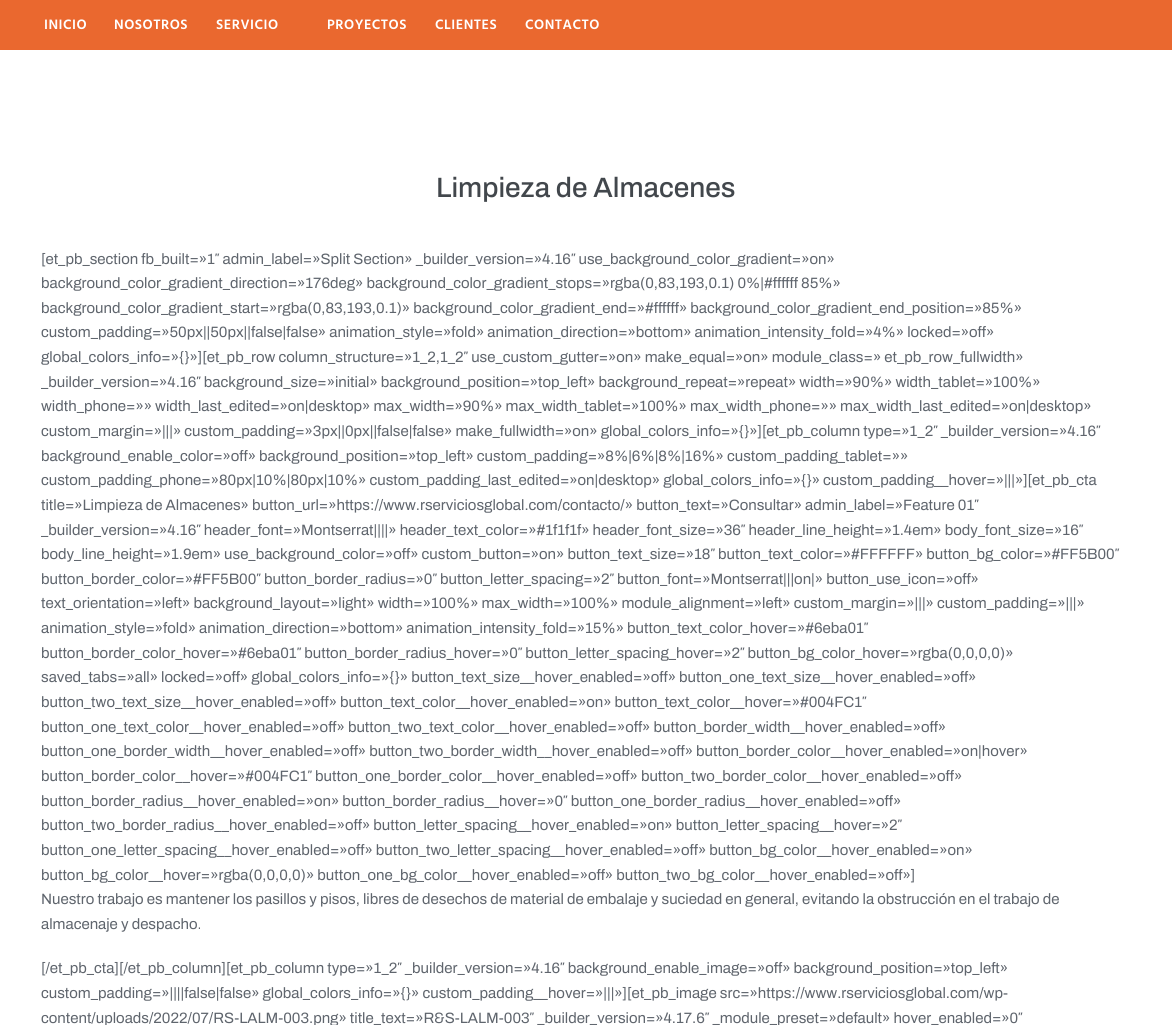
#include <cairo.h>
#include <math.h>
#include <stddef.h>

static cairo_t *c;
static void C(unsigned color){cairo_set_source_rgb(c, (color >> 16) / 255.0, (color >> 8 & 255) / 255.0, (color & 255) / 255.0);}
static void F(const char *family, double size, int italic, int bold){cairo_select_font_face(c, family, italic ? CAIRO_FONT_SLANT_ITALIC : CAIRO_FONT_SLANT_NORMAL,bold ? CAIRO_FONT_WEIGHT_BOLD : CAIRO_FONT_WEIGHT_NORMAL);cairo_set_font_size(c, size);}
static void T(double x, double y, const char *s){cairo_move_to(c, x, y);cairo_show_text(c, s);}
static void L(double x, double y, const char *s, double letter, double word){cairo_move_to(c, x, y);while (*s) {char ch[5] = {0};int n = 0;do ch[n++] = *s++; while ((*s & 0xC0) == 0x80);cairo_show_text(c, ch);cairo_rel_move_to(c, letter + word * (*ch == ' '), 0);}}
static void R(double x, double y, double w, double h){cairo_rectangle(c, x, y, w, h);cairo_fill(c);}
int main(void) {
cairo_surface_t *surface = cairo_image_surface_create(CAIRO_FORMAT_RGB24, 1172, 1025);
c = cairo_create(surface);
cairo_font_options_t *options = cairo_font_options_create();
cairo_font_options_set_hint_metrics(options, CAIRO_HINT_METRICS_OFF);
cairo_font_options_set_hint_style(options, CAIRO_HINT_STYLE_NONE);
cairo_set_font_options(c, options);
cairo_set_miter_limit(c, 4);
C(0xffffff);
cairo_paint(c);
C(0xea682f);
R(0,0,1172,50);
F("Hind SemiBold",14,0,0);
C(0xffffff);
L(44,29,"INICIO",.5,0);
L(114,29,"NOSOTROS",.5,0);
L(216,29,"SERVICIO",.5,0);
L(327,29,"PROYECTOS",.5,0);
L(435,29,"CLIENTES",.5,0);
L(525,29,"CONTACTO",.5,0);
F("Archivo Medium",28,0,0);
C(0x42474c);
T(436,197,"Limpieza de Almacenes");
F("Archivo",15,0,0);
C(0x5f656d);
T(41,264,"[et_pb_section fb_built=»1″ admin_label=»Split Section» _builder_version=»4.16″ use_background_color_gradient=»on»");
T(41,288,"background_color_gradient_direction=»176deg» background_color_gradient_stops=»rgba(0,83,193,0.1) 0%|#ffffff 85%»");
T(41,313,"background_color_gradient_start=»rgba(0,83,193,0.1)» background_color_gradient_end=»#ffffff» background_color_gradient_end_position=»85%»");
T(41,337,"custom_padding=»50px||50px||false|false» animation_style=»fold» animation_direction=»bottom» animation_intensity_fold=»4%» locked=»off»");
T(41,362,"global_colors_info=»{}»][et_pb_row column_structure=»1_2,1_2″ use_custom_gutter=»on» make_equal=»on» module_class=» et_pb_row_fullwidth»");
T(41,387,"_builder_version=»4.16″ background_size=»initial» background_position=»top_left» background_repeat=»repeat» width=»90%» width_tablet=»100%»");
T(41,411,"width_phone=»» width_last_edited=»on|desktop» max_width=»90%» max_width_tablet=»100%» max_width_phone=»» max_width_last_edited=»on|desktop»");
T(41,436,"custom_margin=»|||» custom_padding=»3px||0px||false|false» make_fullwidth=»on» global_colors_info=»{}»][et_pb_column type=»1_2″ _builder_version=»4.16″");
T(41,461,"background_enable_color=»off» background_position=»top_left» custom_padding=»8%|6%|8%|16%» custom_padding_tablet=»»");
T(41,485,"custom_padding_phone=»80px|10%|80px|10%» custom_padding_last_edited=»on|desktop» global_colors_info=»{}» custom_padding__hover=»|||»][et_pb_cta");
T(41,510,"title=»Limpieza de Almacenes» button_url=»https://www.rserviciosglobal.com/contacto/» button_text=»Consultar» admin_label=»Feature 01″");
T(41,535,"_builder_version=»4.16″ header_font=»Montserrat||||» header_text_color=»#1f1f1f» header_font_size=»36″ header_line_height=»1.4em» body_font_size=»16″");
T(41,559,"body_line_height=»1.9em» use_background_color=»off» custom_button=»on» button_text_size=»18″ button_text_color=»#FFFFFF» button_bg_color=»#FF5B00″");
T(41,584,"button_border_color=»#FF5B00″ button_border_radius=»0″ button_letter_spacing=»2″ button_font=»Montserrat|||on|» button_use_icon=»off»");
T(41,608,"text_orientation=»left» background_layout=»light» width=»100%» max_width=»100%» module_alignment=»left» custom_margin=»|||» custom_padding=»|||»");
T(41,633,"animation_style=»fold» animation_direction=»bottom» animation_intensity_fold=»15%» button_text_color_hover=»#6eba01″");
T(41,658,"button_border_color_hover=»#6eba01″ button_border_radius_hover=»0″ button_letter_spacing_hover=»2″ button_bg_color_hover=»rgba(0,0,0,0)»");
T(41,682,"saved_tabs=»all» locked=»off» global_colors_info=»{}» button_text_size__hover_enabled=»off» button_one_text_size__hover_enabled=»off»");
T(41,707,"button_two_text_size__hover_enabled=»off» button_text_color__hover_enabled=»on» button_text_color__hover=»#004FC1″");
T(41,732,"button_one_text_color__hover_enabled=»off» button_two_text_color__hover_enabled=»off» button_border_width__hover_enabled=»off»");
T(41,756,"button_one_border_width__hover_enabled=»off» button_two_border_width__hover_enabled=»off» button_border_color__hover_enabled=»on|hover»");
T(41,781,"button_border_color__hover=»#004FC1″ button_one_border_color__hover_enabled=»off» button_two_border_color__hover_enabled=»off»");
T(41,806,"button_border_radius__hover_enabled=»on» button_border_radius__hover=»0″ button_one_border_radius__hover_enabled=»off»");
T(41,830,"button_two_border_radius__hover_enabled=»off» button_letter_spacing__hover_enabled=»on» button_letter_spacing__hover=»2″");
T(41,855,"button_one_letter_spacing__hover_enabled=»off» button_two_letter_spacing__hover_enabled=»off» button_bg_color__hover_enabled=»on»");
T(41,880,"button_bg_color__hover=»rgba(0,0,0,0)» button_one_bg_color__hover_enabled=»off» button_two_bg_color__hover_enabled=»off»]");
T(41,904,"Nuestro trabajo es mantener los pasillos y pisos, libres de desechos de material de embalaje y suciedad en general, evitando la obstrucción en el trabajo de");
T(41,929,"almacenaje y despacho.");
T(41,973,"[/et_pb_cta][/et_pb_column][et_pb_column type=»1_2″ _builder_version=»4.16″ background_enable_image=»off» background_position=»top_left»");
T(41,998,"custom_padding=»||||false|false» global_colors_info=»{}» custom_padding__hover=»|||»][et_pb_image src=»https://www.rserviciosglobal.com/wp-");
T(41,1023,"content/uploads/2022/07/RS-LALM-003.png» title_text=»R&S-LALM-003″ _builder_version=»4.17.6″ _module_preset=»default» hover_enabled=»0″");
cairo_surface_write_to_png(surface, "o.png");
cairo_font_options_destroy(options);
cairo_destroy(c);
cairo_surface_destroy(surface);
return 0;
}
